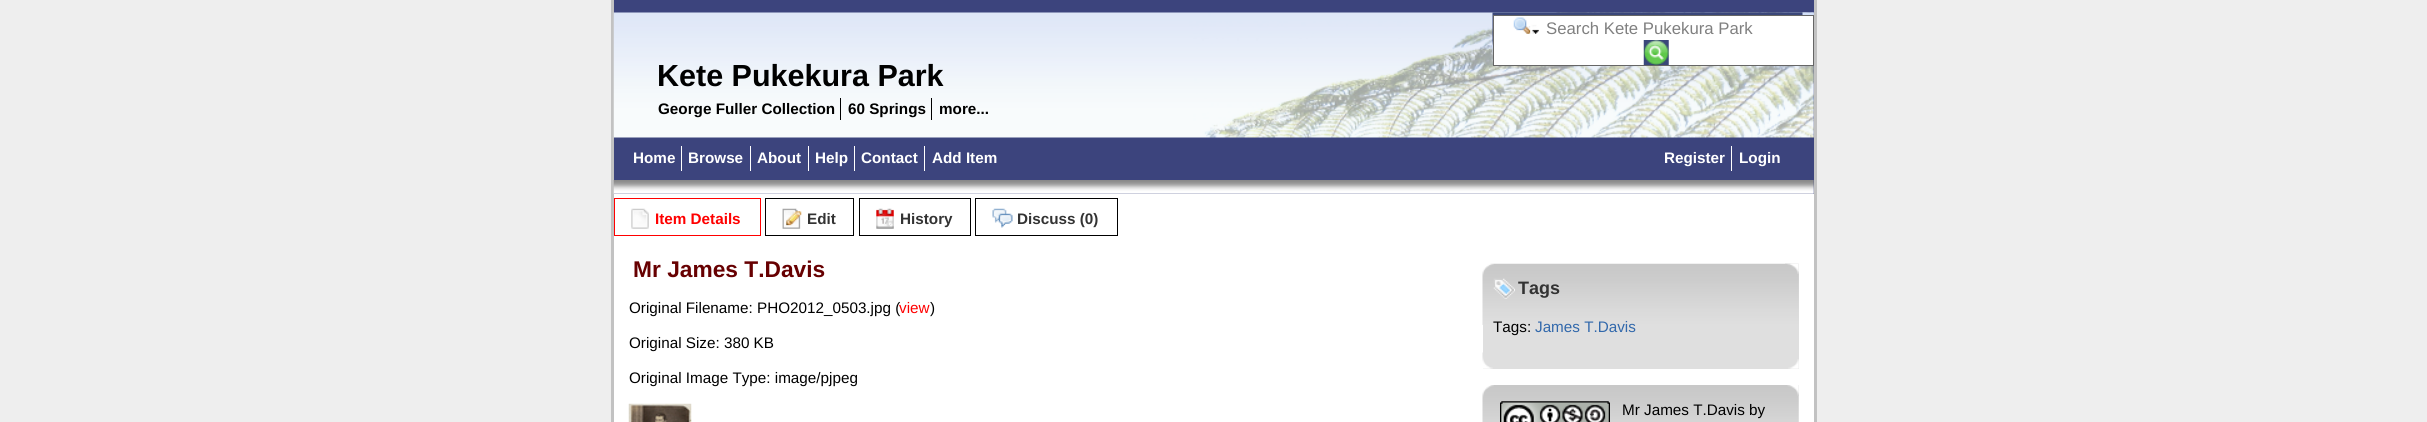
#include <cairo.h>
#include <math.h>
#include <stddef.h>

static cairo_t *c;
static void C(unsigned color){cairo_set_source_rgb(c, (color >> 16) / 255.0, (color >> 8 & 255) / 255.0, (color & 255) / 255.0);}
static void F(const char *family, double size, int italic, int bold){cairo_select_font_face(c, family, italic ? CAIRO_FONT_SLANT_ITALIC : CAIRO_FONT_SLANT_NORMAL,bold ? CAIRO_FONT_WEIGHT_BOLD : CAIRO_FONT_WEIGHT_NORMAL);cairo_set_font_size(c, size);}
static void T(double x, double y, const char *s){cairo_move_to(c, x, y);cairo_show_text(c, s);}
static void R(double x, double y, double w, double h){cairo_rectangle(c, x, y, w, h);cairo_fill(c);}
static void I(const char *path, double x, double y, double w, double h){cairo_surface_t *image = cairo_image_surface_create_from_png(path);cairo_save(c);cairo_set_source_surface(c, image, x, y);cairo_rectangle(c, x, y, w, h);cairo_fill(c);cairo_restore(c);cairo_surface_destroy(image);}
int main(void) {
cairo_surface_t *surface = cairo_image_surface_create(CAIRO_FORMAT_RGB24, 2427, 422);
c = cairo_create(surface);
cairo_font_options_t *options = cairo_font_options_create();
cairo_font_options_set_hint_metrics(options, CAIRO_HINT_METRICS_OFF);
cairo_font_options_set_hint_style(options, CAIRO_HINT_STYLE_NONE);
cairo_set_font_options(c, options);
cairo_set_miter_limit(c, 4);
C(0xeeeeee);
cairo_paint(c);
C(0xffffff);
R(614,194,1200,228);
C(0xc2c2c2);
R(1814,0,3,422);
R(611,0,3,422);
C(0x3c447d);
R(614,0,1200,194);
I("1.png",613,12,1201,126);
I("2.png",1492,12,322,41);
C(0xffffff);
cairo_rectangle(c,1493.5,15.5,320,50);
cairo_fill_preserve(c);
C(0x666666);
cairo_set_line_width(c,1);
cairo_stroke(c);
I("3.png",1513,17,26,17);
F("Liberation Sans",16.75,0,0);
C(0x808080);
T(1546,34,"Search Kete Pukekura Park");
I("4.png",1643,40,26,25);
F("Liberation Sans",30.5,0,1);
C(0x000000);
T(657,86,"Kete Pukekura Park");
F("Liberation Sans",15.25,0,1);
T(658,114,"George Fuller Collection");
T(848,114,"60 Springs");
R(840,98,1,22);
T(939,114,"more...");
R(931,98,1,22);
I("5.png",613,180,1201,14);
C(0xffffff);
T(633,163,"Home");
R(681,146,1,25);
T(688,163,"Browse");
R(750,146,1,25);
T(757,163,"About");
R(808,146,1,25);
T(815,163,"Help");
R(854,146,1,25);
T(861,163,"Contact");
R(924,146,1,25);
T(932,163,"Add Item");
T(1664,163,"Register");
R(1731,146,1,25);
T(1739,163,"Login");
cairo_rectangle(c,614.5,198.5,146,37);
C(0xff0000);
cairo_stroke(c);
I("6.png",631,208,18,21);
T(655,224,"Item Details");
cairo_rectangle(c,765.5,198.5,88,37);
C(0x000000);
cairo_stroke(c);
I("7.png",782,208,20,21);
C(0x333333);
T(807,224,"Edit");
cairo_rectangle(c,859.5,198.5,111,37);
C(0x000000);
cairo_stroke(c);
I("8.png",876,208,18,21);
C(0x333333);
T(900,224,"History");
cairo_rectangle(c,975.5,198.5,142,37);
C(0x000000);
cairo_stroke(c);
I("9.png",992,208,21,20);
C(0x333333);
T(1017,224,"Discuss (0)");
F("Liberation Sans",22.75,0,1);
C(0x670001);
T(633,277,"Mr James T.Davis");
F("Liberation Sans",15.25,0,0);
C(0x000000);
T(629,313,"Original Filename: PHO2012_0503.jpg (");
C(0xff0000);
T(899,313,"view");
C(0x000000);
T(930,313,")");
T(629,348,"Original Size: 380 KB");
T(629,383,"Original Image Type: image/pjpeg");
I("10.png",628,403,64,19);
C(0xdfdfdf);
R(1483,264,316,105);
I("11.png",1482,263,317,62);
I("12.png",1785,263,14,11);
I("13.png",1493,278,22,21);
F("Liberation Sans",18,0,1);
C(0x333333);
T(1518,294,"Tags");
F("Liberation Sans",15.25,0,0);
C(0x000000);
T(1493,332,"Tags:");
C(0x3168ab);
T(1535,332,"James T.Davis");
I("14.png",1482,352,11,17);
I("15.png",1788,359,11,10);
I("16.png",1482,385,317,37);
I("17.png",1787,385,12,11);
I("18.png",1500,401,110,21);
C(0x000000);
T(1622,415,"Mr James T.Davis by");
cairo_surface_write_to_png(surface, "o.png");
cairo_font_options_destroy(options);
cairo_destroy(c);
cairo_surface_destroy(surface);
return 0;
}
